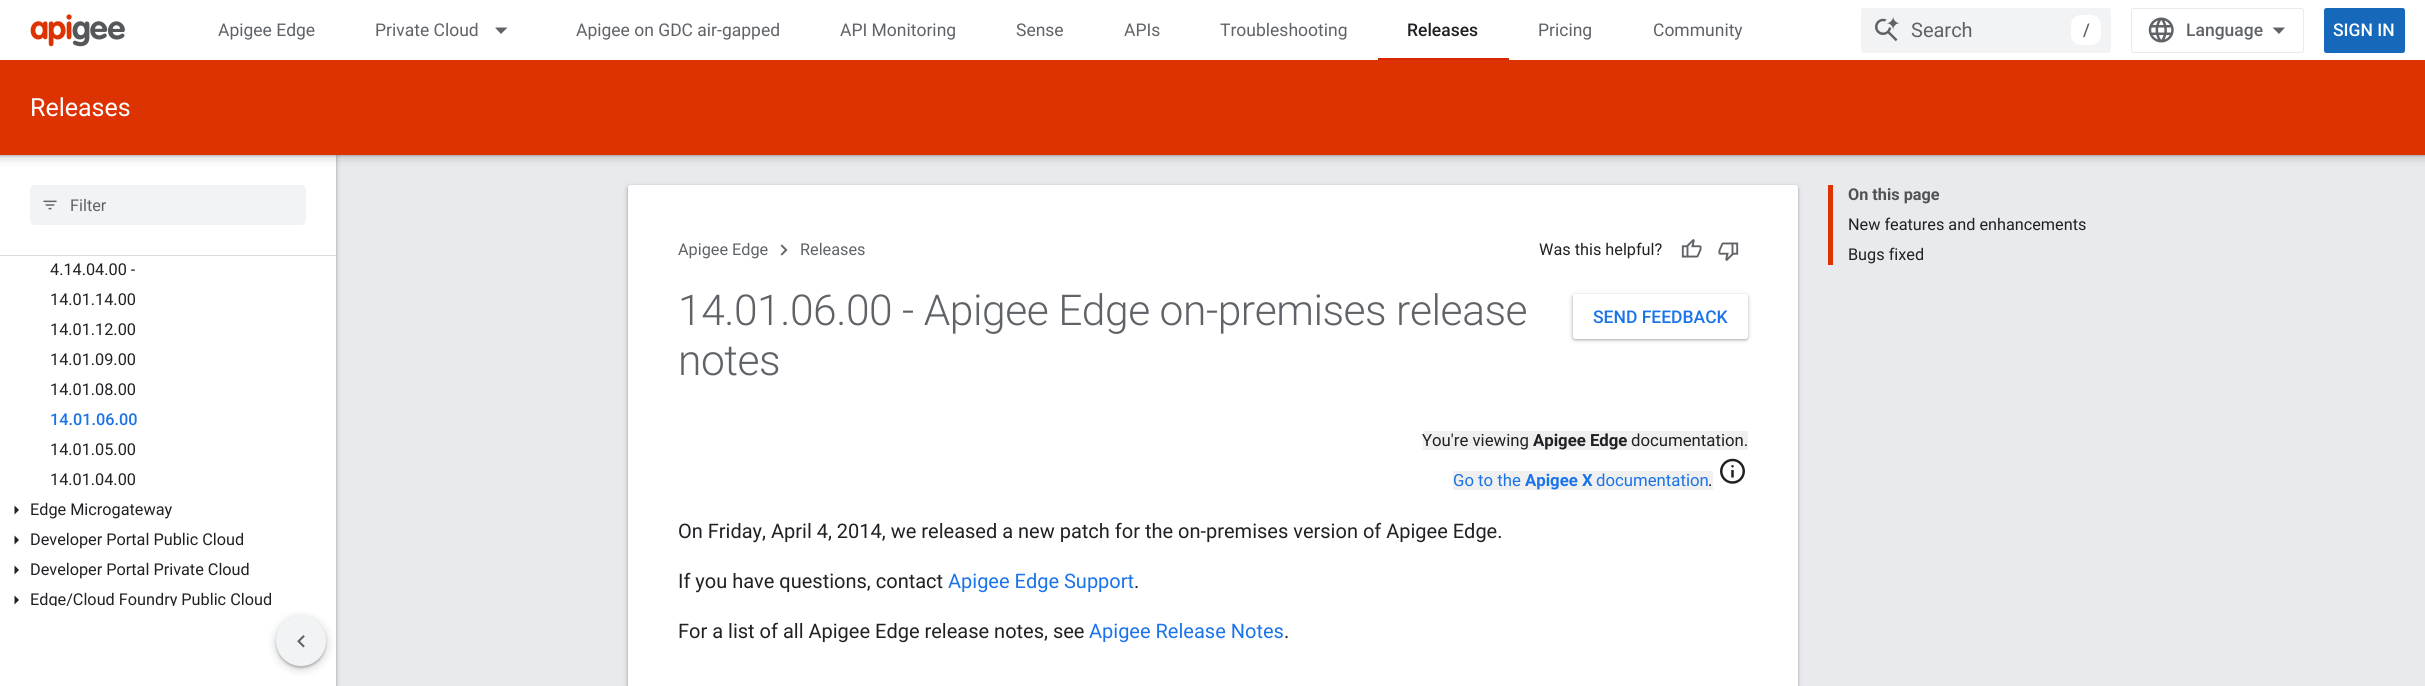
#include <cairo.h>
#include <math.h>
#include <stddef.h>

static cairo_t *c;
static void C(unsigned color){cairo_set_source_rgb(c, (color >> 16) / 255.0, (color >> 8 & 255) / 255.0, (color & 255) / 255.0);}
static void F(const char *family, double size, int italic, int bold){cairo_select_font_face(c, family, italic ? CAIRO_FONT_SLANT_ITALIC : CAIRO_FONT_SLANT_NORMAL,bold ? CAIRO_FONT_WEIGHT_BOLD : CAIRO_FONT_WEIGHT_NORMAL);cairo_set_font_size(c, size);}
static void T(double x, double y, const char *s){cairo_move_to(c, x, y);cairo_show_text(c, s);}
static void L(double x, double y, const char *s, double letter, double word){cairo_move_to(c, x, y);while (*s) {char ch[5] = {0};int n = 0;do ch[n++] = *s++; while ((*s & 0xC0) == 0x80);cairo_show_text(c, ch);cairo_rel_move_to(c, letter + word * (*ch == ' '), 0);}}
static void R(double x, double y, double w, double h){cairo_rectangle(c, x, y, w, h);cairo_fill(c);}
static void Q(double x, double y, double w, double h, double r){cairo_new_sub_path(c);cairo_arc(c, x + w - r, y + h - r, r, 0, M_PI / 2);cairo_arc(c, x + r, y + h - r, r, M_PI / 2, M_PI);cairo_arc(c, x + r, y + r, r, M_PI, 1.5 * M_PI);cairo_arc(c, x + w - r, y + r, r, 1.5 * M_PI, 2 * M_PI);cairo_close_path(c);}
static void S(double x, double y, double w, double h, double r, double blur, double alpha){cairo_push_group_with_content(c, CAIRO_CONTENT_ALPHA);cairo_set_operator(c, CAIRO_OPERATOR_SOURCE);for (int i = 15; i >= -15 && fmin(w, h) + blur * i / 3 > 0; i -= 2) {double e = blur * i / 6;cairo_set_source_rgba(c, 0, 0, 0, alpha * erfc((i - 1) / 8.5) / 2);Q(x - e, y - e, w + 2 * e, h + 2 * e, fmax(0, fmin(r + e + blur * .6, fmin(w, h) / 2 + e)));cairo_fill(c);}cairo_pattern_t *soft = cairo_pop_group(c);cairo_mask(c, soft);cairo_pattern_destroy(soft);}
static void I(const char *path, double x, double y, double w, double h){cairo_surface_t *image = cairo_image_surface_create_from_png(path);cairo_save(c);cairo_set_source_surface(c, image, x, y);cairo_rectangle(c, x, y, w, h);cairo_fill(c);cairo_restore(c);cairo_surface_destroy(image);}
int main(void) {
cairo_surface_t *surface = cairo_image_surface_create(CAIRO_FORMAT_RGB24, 2425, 686);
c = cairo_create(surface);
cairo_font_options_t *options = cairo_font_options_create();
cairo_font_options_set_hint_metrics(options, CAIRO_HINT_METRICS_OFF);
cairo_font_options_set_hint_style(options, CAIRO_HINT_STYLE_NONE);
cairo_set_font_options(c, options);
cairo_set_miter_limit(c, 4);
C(0xe8eaed);
cairo_paint(c);
C(0x3c4043);
S(-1,0,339,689,0,2,.15);
S(0,1,336,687,0,1,.3);
C(0xffffff);
R(0,256,336,350);
R(0,155,336,100);
C(0x3c4043);
S(-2,60,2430,100,0,4,.15);
S(0,61,2425,95,0,1,.3);
C(0xffffff);
R(0,0,2425,60);
I("1.png",30,14,95,33);
F("Roboto",17.5,0,0);
C(0x5f6368);
T(218,36,"Apigee Edge");
T(375,36,"Private Cloud");
cairo_new_path(c);
cairo_move_to(c,495,27.5);
cairo_line_to(c,507.5,27.5);
cairo_line_to(c,501,34);
cairo_close_path(c);
cairo_fill(c);
T(576,36,"Apigee on GDC air-gapped");
T(840,36,"API Monitoring");
T(1016,36,"Sense");
T(1124,36,"APIs");
T(1220,36,"Troubleshooting");
F("Roboto Medium",17.5,0,0);
C(0x202124);
T(1407,36,"Releases");
C(0xd42702);
R(1378,58,131,2);
F("Roboto",17.5,0,0);
C(0x5f6368);
T(1538,36,"Pricing");
T(1653,36,"Community");
C(0xf1f3f4);
Q(1861,8,250,45,2.5);
cairo_fill(c);
I("2.png",1875,16,25,26);
F("Roboto",20,0,0);
C(0x5f6368);
T(1911,37,"Search");
C(0xffffff);
Q(2071,15,30,30,10);
cairo_fill(c);
F("Roboto Medium",17.5,0,0);
C(0x5f6368);
T(2083,36,"/");
Q(2131.5,8.5,172,44,2);
C(0xe8eaed);
cairo_set_line_width(c,1);
cairo_stroke(c);
I("3.png",2148,17,26,26);
C(0x5f6368);
T(2186,36,"Language");
cairo_new_path(c);
cairo_move_to(c,2279,34);
cairo_line_to(c,2272.5,27.5);
cairo_line_to(c,2285,27.5);
cairo_close_path(c);
cairo_fill(c);
C(0x1568ba);
Q(2324,8,81,45,2.5);
cairo_fill(c);
C(0xffffff);
T(2333,36,"SIGN IN");
C(0xdd3303);
R(0,60,2425,95);
F("Roboto",25,0,0);
C(0xffffff);
T(30,116,"Releases");
C(0xdadce0);
R(0,255,336,1);
C(0xf1f3f4);
Q(30,185,276,40,5);
cairo_fill(c);
I("4.png",43,200,14,10);
F("Roboto",16.25,0,0);
C(0x5f6368);
T(70,211,"Filter");
C(0x202124);
T(50,275,"4.14.04.00 -");
T(50,305,"14.01.14.00");
T(50,335,"14.01.12.00");
T(50,365,"14.01.09.00");
T(50,395,"14.01.08.00");
F("Roboto Medium",16.25,0,0);
C(0x1a73e8);
T(50,425,"14.01.06.00");
F("Roboto",16.25,0,0);
C(0x202124);
T(50,455,"14.01.05.00");
T(50,485,"14.01.04.00");
cairo_new_path(c);
cairo_move_to(c,14.5,514.5);
cairo_line_to(c,14.5,505.5);
cairo_line_to(c,19,510);
cairo_close_path(c);
cairo_fill(c);
T(30,515,"Edge Microgateway");
cairo_new_path(c);
cairo_move_to(c,14.5,544.5);
cairo_line_to(c,14.5,535.5);
cairo_line_to(c,19,540);
cairo_close_path(c);
cairo_fill(c);
T(30,545,"Developer Portal Public Cloud");
cairo_new_path(c);
cairo_move_to(c,14.5,574.5);
cairo_line_to(c,14.5,565.5);
cairo_line_to(c,19,570);
cairo_close_path(c);
cairo_fill(c);
T(30,575,"Developer Portal Private Cloud");
cairo_new_path(c);
cairo_move_to(c,14.5,604.5);
cairo_line_to(c,14.5,595.5);
cairo_line_to(c,19,600);
cairo_close_path(c);
cairo_fill(c);
T(30,605,"Edge/Cloud Foundry Public Cloud");
C(0xdd3303);
R(1828,185,5,80);
F("Roboto",16.25,0,1);
C(0x515253);
T(1848,200,"On this page");
F("Roboto",16.25,0,0);
C(0x202124);
T(1848,230,"New features and enhancements");
T(1848,260,"Bugs fixed");
C(0x3c4043);
S(626,185,1173,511,4,2,.15);
S(628,186,1170,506,2.5,1,.3);
C(0xffffff);
Q(628,185,1170,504,2.5);
cairo_fill(c);
C(0x5f6368);
T(678,255,"Apigee Edge");
I("5.png",780,244,8,12);
T(800,255,"Releases");
C(0x202124);
T(1539,255,"Was this helpful?");
I("6.png",1681,239,21,19);
I("7.png",1718,242,21,19);
F("Roboto Light",42.5,0,0);
C(0x5f6368);
L(678,325,"14.01.06.00 - Apigee Edge on-premises release",-.45,0);
C(0x3c4043);
S(1571,294,178,47,4,2,.15);
S(1573,295,175,45,2.5,1,.3);
C(0xffffff);
Q(1573,294,175,45,2.5);
cairo_fill(c);
F("Roboto Medium",17.5,0,0);
C(0x1a73e8);
T(1593,323,"SEND FEEDBACK");
F("Roboto Light",42.5,0,0);
C(0x5f6368);
L(678,375,"notes",-.45,0);
C(0xf0f0f0);
R(1423,431,325,19);
F("Roboto",16.75,0,0);
C(0x202124);
T(1422,446,"You're viewing");
F("Roboto",16.75,0,1);
T(1533,446,"Apigee Edge");
F("Roboto",16.75,0,0);
T(1631,446,"documentation.");
C(0xf0f0f0);
R(1453,471,260,19);
C(0x1a73e8);
T(1453,486,"Go to the");
F("Roboto",16.75,0,1);
T(1525,486,"Apigee X");
F("Roboto",16.75,0,0);
T(1596,486,"documentation");
C(0x202124);
T(1708,486,".");
I("8.png",1720,458,25,26);
F("Roboto",20,0,0);
T(678,538,"On Friday, April 4, 2014, we released a new patch for the on-premises version of Apigee Edge.");
T(678,588,"If you have questions, contact");
C(0x1a73e8);
T(948,588,"Apigee Edge Support");
C(0x202124);
T(1134,588,".");
T(678,638,"For a list of all Apigee Edge release notes, see");
C(0x1a73e8);
T(1089,638,"Apigee Release Notes");
C(0x202124);
T(1284,638,".");
C(0xffffff);
R(0,606,336,80);
C(0x3c4043);
S(274,616,55,55,27.5,4,.15);
S(276,618,50,50,25,1,.3);
C(0xf1f3f4);
cairo_arc(c,301,641,25,0,2 * M_PI);
cairo_fill(c);
I("9.png",297,635,8,13);
cairo_surface_write_to_png(surface, "o.png");
cairo_font_options_destroy(options);
cairo_destroy(c);
cairo_surface_destroy(surface);
return 0;
}
